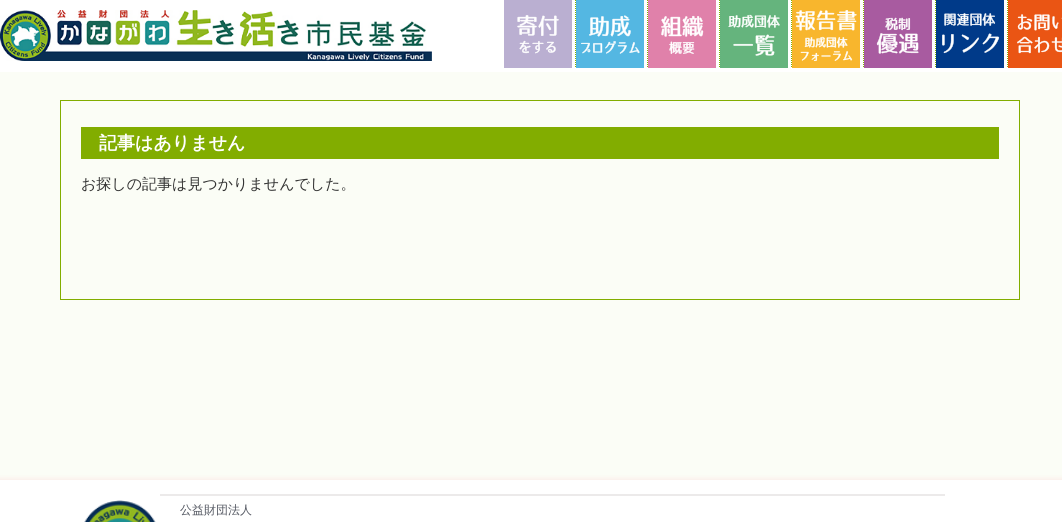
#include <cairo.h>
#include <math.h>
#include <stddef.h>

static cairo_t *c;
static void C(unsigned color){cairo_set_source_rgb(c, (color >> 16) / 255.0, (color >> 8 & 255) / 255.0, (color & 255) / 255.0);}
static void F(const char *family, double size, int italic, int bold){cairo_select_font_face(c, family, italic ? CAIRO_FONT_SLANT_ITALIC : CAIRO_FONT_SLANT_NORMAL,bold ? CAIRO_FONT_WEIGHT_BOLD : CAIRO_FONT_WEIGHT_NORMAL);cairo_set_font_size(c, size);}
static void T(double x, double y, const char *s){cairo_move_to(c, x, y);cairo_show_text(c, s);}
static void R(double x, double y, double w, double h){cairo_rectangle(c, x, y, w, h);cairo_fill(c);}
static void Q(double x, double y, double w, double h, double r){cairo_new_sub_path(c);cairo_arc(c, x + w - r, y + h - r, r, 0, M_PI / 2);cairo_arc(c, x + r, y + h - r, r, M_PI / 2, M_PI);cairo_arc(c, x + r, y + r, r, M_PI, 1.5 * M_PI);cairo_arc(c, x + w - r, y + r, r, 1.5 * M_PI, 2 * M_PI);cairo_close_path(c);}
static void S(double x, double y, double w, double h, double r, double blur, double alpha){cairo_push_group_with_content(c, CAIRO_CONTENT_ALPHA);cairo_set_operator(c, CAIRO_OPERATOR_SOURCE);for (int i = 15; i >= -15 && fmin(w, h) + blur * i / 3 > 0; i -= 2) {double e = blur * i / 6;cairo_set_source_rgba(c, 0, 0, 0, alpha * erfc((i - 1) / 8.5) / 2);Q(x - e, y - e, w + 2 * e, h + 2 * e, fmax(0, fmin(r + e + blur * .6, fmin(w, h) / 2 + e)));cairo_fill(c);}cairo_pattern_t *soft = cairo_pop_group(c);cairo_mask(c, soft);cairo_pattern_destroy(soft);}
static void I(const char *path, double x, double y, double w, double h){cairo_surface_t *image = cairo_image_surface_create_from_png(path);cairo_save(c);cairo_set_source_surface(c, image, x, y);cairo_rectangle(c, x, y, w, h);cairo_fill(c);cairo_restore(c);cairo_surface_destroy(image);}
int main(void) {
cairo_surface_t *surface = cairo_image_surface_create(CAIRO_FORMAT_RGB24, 1062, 522);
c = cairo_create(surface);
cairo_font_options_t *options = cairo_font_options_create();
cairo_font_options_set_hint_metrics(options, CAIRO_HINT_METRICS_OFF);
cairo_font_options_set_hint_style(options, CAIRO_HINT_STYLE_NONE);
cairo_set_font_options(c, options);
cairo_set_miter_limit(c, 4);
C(0xfbfdf6);
cairo_paint(c);
C(0xffffff);
R(0,0,1062,72);
I("1.png",0,10,432,51);
cairo_new_path(c);
cairo_move_to(c,575.5,0);
cairo_line_to(c,575.5,68);
C(0x83b200);
cairo_set_line_width(c,1);
cairo_set_dash(c,(double[]){1,1},2,0);
cairo_stroke(c);
I("2.png",504,0,68,68);
cairo_new_path(c);
cairo_move_to(c,647.5,0);
cairo_line_to(c,647.5,68);
cairo_stroke(c);
I("3.png",576,0,68,68);
cairo_new_path(c);
cairo_move_to(c,719.5,0);
cairo_line_to(c,719.5,68);
cairo_stroke(c);
I("4.png",648,0,68,68);
cairo_new_path(c);
cairo_move_to(c,791.5,0);
cairo_line_to(c,791.5,68);
cairo_stroke(c);
I("5.png",720,0,68,68);
cairo_new_path(c);
cairo_move_to(c,863.5,0);
cairo_line_to(c,863.5,68);
cairo_stroke(c);
I("6.png",792,0,68,68);
cairo_new_path(c);
cairo_move_to(c,935.5,0);
cairo_line_to(c,935.5,68);
cairo_stroke(c);
I("7.png",864,0,68,68);
cairo_new_path(c);
cairo_move_to(c,1007.5,0);
cairo_line_to(c,1007.5,68);
cairo_stroke(c);
I("8.png",936,0,68,68);
I("9.png",1008,0,54,68);
cairo_rectangle(c,60.5,100.5,959,199);
C(0x82ad00);
cairo_set_dash(c,NULL,0,0);
cairo_stroke(c);
R(81,127,918,32);
F("WenQuanYi Zen Hei",18,0,1);
C(0xffffff);
T(99,149,"記事はありません");
F("WenQuanYi Zen Hei Medium",15,0,0);
C(0x333333);
T(81,189,"お探しの記事は見つかりませんでした。");
C(0xfccfcf);
S(-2,478,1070,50,0,2,.3);
C(0xffffff);
R(0,480,1062,42);
I("10.png",84,500,72,22);
C(0xeceaea);
R(160,494,785,2);
F("WenQuanYi Zen Hei Medium",12,0,0);
C(0x535761);
T(180,514,"公益財団法人");
cairo_surface_write_to_png(surface, "o.png");
cairo_font_options_destroy(options);
cairo_destroy(c);
cairo_surface_destroy(surface);
return 0;
}
